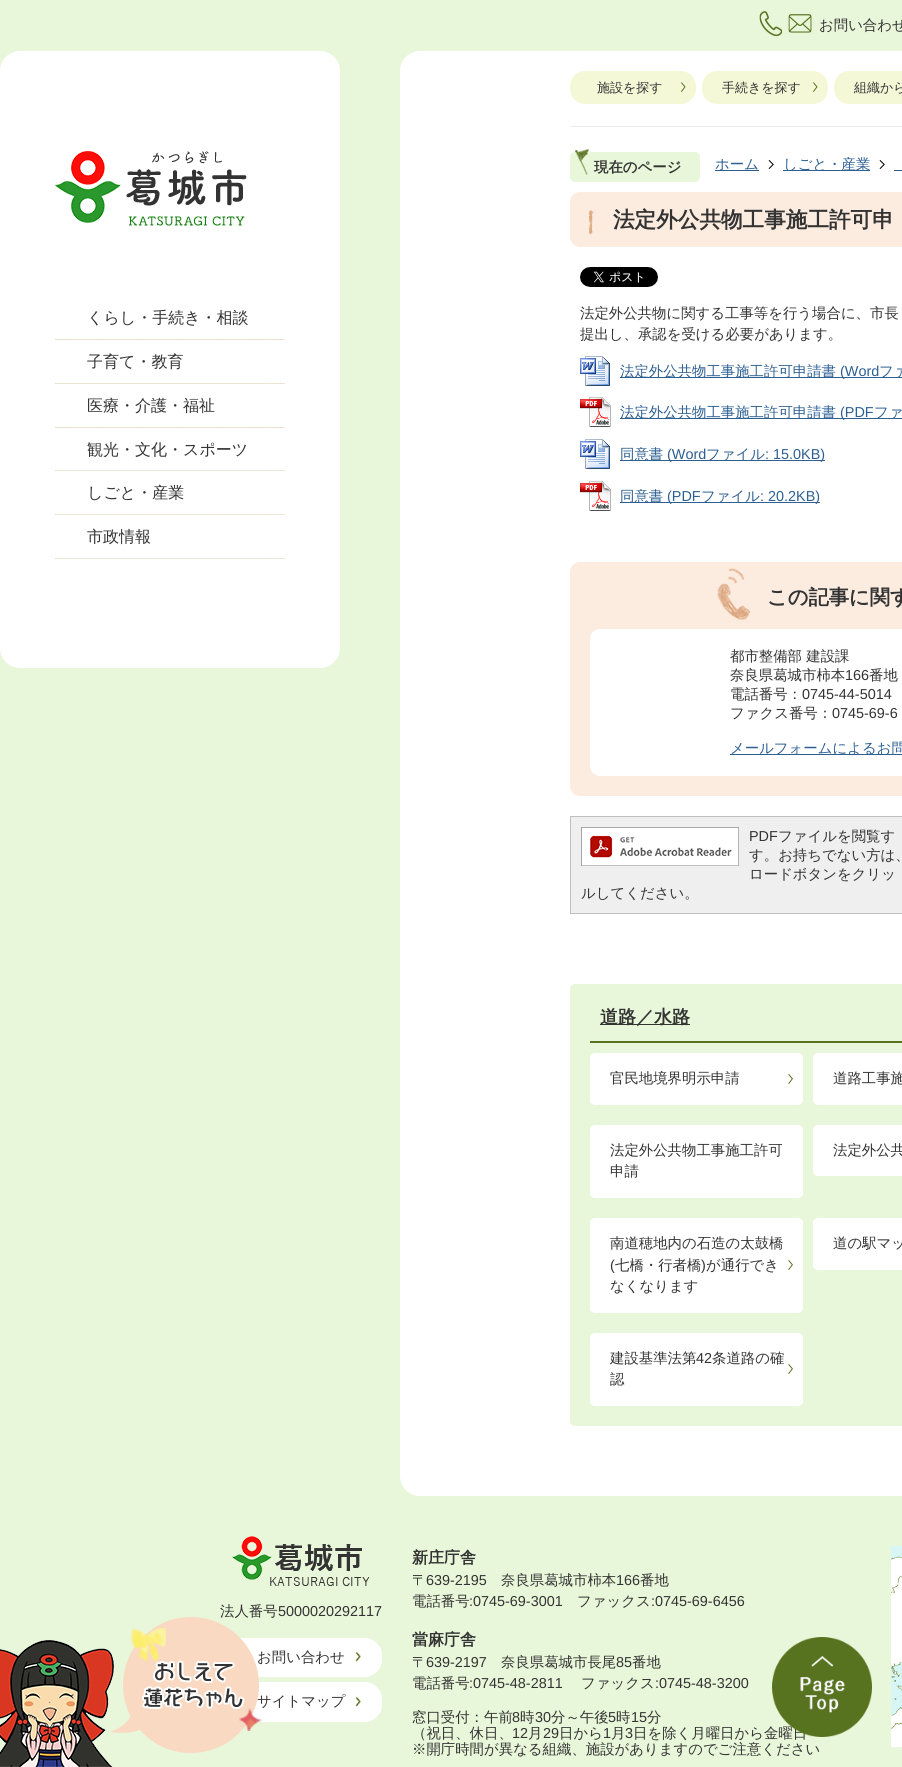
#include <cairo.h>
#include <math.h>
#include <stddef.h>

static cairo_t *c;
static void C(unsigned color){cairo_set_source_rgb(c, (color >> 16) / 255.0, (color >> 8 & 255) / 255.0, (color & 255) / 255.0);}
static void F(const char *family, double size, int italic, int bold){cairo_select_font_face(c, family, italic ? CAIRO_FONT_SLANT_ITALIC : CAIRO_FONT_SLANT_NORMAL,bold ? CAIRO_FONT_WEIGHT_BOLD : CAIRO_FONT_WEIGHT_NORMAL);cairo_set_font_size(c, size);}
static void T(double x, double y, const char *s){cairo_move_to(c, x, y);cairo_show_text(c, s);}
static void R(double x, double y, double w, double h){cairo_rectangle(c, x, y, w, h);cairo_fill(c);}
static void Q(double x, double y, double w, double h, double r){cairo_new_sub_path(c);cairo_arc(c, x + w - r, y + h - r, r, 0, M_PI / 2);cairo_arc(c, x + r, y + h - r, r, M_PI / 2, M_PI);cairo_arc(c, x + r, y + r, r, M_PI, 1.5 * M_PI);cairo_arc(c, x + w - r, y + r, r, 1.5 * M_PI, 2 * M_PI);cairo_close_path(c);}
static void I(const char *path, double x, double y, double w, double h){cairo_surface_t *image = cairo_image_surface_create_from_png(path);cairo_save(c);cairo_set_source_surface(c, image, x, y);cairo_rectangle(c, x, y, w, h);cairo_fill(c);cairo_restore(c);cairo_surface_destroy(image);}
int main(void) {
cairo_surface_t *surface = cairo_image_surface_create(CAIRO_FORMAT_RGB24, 902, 1767);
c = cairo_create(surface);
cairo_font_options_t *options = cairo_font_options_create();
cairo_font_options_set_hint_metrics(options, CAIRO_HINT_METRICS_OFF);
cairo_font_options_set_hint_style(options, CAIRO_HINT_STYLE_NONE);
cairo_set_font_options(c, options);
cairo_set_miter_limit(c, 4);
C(0xe8f6d9);
cairo_paint(c);
I("1.png",759,11,53,25);
F("WenQuanYi Zen Hei Medium",14.4,0,0);
C(0x333333);
T(819,30,"お問い合わせ");
C(0xffffff);
Q(0,51,340,617,20);
cairo_fill(c);
I("2.png",55,151,192,75);
I("3.png",55,339,230,1);
F("WenQuanYi Zen Hei Medium",16,0,0);
C(0x333333);
T(87,323,"くらし・手続き・相談");
I("3.png",55,383,230,1);
T(87,367,"子育て・教育");
I("3.png",55,427,230,1);
T(87,411,"医療・介護・福祉");
I("3.png",55,470,230,1);
T(87,455,"観光・文化・スポーツ");
I("3.png",55,514,230,1);
T(87,498,"しごと・産業");
I("3.png",55,558,230,1);
T(87,542,"市政情報");
C(0xffffff);
Q(400,51,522,1445,20);
cairo_fill(c);
C(0xededed);
R(570,126,332,1);
C(0xf5f8d7);
Q(570,71,126,33,15);
cairo_fill(c);
I("4.png",681,82,5,10);
F("WenQuanYi Zen Hei Medium",13,0,0);
C(0x333333);
T(597,92,"施設を探す");
C(0xf5f8d7);
Q(702,71,126,33,15);
cairo_fill(c);
I("4.png",813,82,5,10);
C(0x333333);
T(722,92,"手続きを探す");
C(0xf5f8d7);
Q(834,71,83,33,15);
cairo_fill(c);
C(0x333333);
T(854,92,"組織から");
C(0xe8f6d9);
Q(570,152,130,30,5);
cairo_fill(c);
I("5.png",575,149,14,26);
F("WenQuanYi Zen Hei",14.4,0,1);
C(0x333333);
T(594,172,"現在のページ");
C(0x2d5f92);
R(715,170,44,1);
F("WenQuanYi Zen Hei Medium",14.4,0,0);
T(715,169,"ホーム");
I("6.png",768,160,6,9);
R(783,170,87,1);
T(783,169,"しごと・産業");
I("6.png",879,160,6,9);
R(894,170,8,1);
C(0xfcece0);
Q(570,192,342,55,10);
cairo_fill(c);
I("7.png",588,210,6,25);
F("WenQuanYi Zen Hei",21.6,0,1);
C(0x333333);
T(613,227,"法定外公共物工事施工許可申");
I("8.png",580,267,78,20);
F("WenQuanYi Zen Hei Medium",14.4,0,0);
T(580,318,"法定外公共物に関する工事等を行う場合に、市長");
T(580,339,"提出し、承認を受ける必要があります。");
I("9.png",580,356,30,30);
C(0x2d5f92);
R(620,377,282,1);
T(620,376,"法定外公共物工事施工許可申請書");
F("Liberation Sans",14.4,0,0);
T(840,376,"(Word");
F("WenQuanYi Zen Hei Medium",14.4,0,0);
T(879,376,"ファ");
I("10.png",580,397,31,30);
R(620,418,282,1);
T(620,417,"法定外公共物工事施工許可申請書");
F("Liberation Sans",14.4,0,0);
T(840,417,"(PDF");
F("WenQuanYi Zen Hei Medium",14.4,0,0);
T(874,417,"ファ");
I("9.png",580,439,30,30);
R(620,460,205,1);
T(620,459,"同意書");
F("Liberation Sans",14.4,0,0);
T(667,459,"(Word");
F("WenQuanYi Zen Hei Medium",14.4,0,0);
T(706,459,"ファイル");
F("Liberation Sans",14.4,0,0);
T(765,459,": 15.0KB)");
I("10.png",580,481,31,30);
R(620,502,200,1);
F("WenQuanYi Zen Hei Medium",14.4,0,0);
T(620,501,"同意書");
F("Liberation Sans",14.4,0,0);
T(667,501,"(PDF");
F("WenQuanYi Zen Hei Medium",14.4,0,0);
T(701,501,"ファイル");
F("Liberation Sans",14.4,0,0);
T(760,501,": 20.2KB)");
C(0xfcece0);
Q(570,562,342,234,10);
cairo_fill(c);
I("11.png",717,568,33,52);
F("WenQuanYi Zen Hei",20.25,0,1);
C(0x333333);
T(767,604,"この記事に関す");
C(0xffffff);
Q(590,629,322,147,10);
cairo_fill(c);
F("WenQuanYi Zen Hei Medium",14.4,0,0);
C(0x333333);
T(730,661,"都市整備部 建設課");
T(730,680,"奈良県葛城市柿本");
F("Liberation Sans",14.4,0,0);
T(845,680,"166");
F("WenQuanYi Zen Hei Medium",14.4,0,0);
T(869,680,"番地");
T(730,699,"電話番号：");
F("Liberation Sans",14.4,0,0);
T(802,699,"0745-44-5014");
F("WenQuanYi Zen Hei Medium",14.4,0,0);
T(730,718,"ファクス番号：");
F("Liberation Sans",14.4,0,0);
T(832,718,"0745-69-6");
C(0x2d5f92);
R(730,754,172,1);
F("WenQuanYi Zen Hei Medium",14.4,0,0);
T(730,753,"メールフォームによるお問");
C(0xefefef);
cairo_rectangle(c,570.5,816.5,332,97);
cairo_fill_preserve(c);
C(0xbfbfbf);
cairo_set_line_width(c,1);
cairo_stroke(c);
I("12.png",581,827,158,39);
F("Liberation Sans",14.4,0,0);
C(0x333333);
T(749,841,"PDF");
F("WenQuanYi Zen Hei Medium",14.4,0,0);
T(778,841,"ファイルを閲覧す");
T(749,860,"す。お持ちでない方は、");
T(749,879,"ロードボタンをクリッ");
T(581,898,"ルしてください。");
C(0xe8f6d9);
Q(570,984,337,442,5);
cairo_fill(c);
C(0x58731f);
R(590,1041,312,2);
C(0x333333);
R(600,1024,90,1);
F("WenQuanYi Zen Hei",18,0,1);
T(600,1023,"道路／水路");
C(0xffffff);
Q(590,1053,213,52,5);
cairo_fill(c);
I("13.png",788,1074,5,10);
F("WenQuanYi Zen Hei Medium",14.4,0,0);
C(0x333333);
T(610,1083,"官民地境界明示申請");
C(0xffffff);
Q(813,1053,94,52,5);
cairo_fill(c);
C(0x333333);
T(833,1083,"道路工事施");
C(0xffffff);
Q(590,1125,213,73,5);
cairo_fill(c);
C(0x333333);
T(610,1155,"法定外公共物工事施工許可");
T(610,1176,"申請");
C(0xffffff);
Q(813,1125,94,51,5);
cairo_fill(c);
C(0x333333);
T(833,1155,"法定外公共");
C(0xffffff);
Q(590,1218,213,95,5);
cairo_fill(c);
I("13.png",788,1260,5,10);
C(0x333333);
T(610,1248,"南道穂地内の石造の太鼓橋");
F("Liberation Sans",14.4,0,0);
T(610,1270,"(");
F("WenQuanYi Zen Hei Medium",14.4,0,0);
T(615,1270,"七橋・行者橋");
F("Liberation Sans",14.4,0,0);
T(701,1270,")");
F("WenQuanYi Zen Hei Medium",14.4,0,0);
T(706,1270,"が通行でき");
T(610,1291,"なくなります");
C(0xffffff);
Q(813,1218,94,52,5);
cairo_fill(c);
C(0x333333);
T(833,1248,"道の駅マッ");
C(0xffffff);
Q(590,1333,213,73,5);
cairo_fill(c);
I("13.png",788,1364,5,10);
C(0x333333);
T(610,1363,"建設基準法第");
F("Liberation Sans",14.4,0,0);
T(696,1363,"42");
F("WenQuanYi Zen Hei Medium",14.4,0,0);
T(712,1363,"条道路の確");
T(610,1384,"認");
I("14.png",232,1536,137,50);
T(220,1616,"法人番号");
F("Liberation Sans",14.4,0,0);
T(278,1616,"5000020292117");
C(0xffffff);
Q(220,1638,162,39,18);
cairo_fill(c);
I("15.png",355,1652,6,10);
Q(220.5,1638.5,161,38,17.5);
cairo_stroke(c);
F("WenQuanYi Zen Hei Medium",14.4,0,0);
C(0x333333);
T(257,1662,"お問い合わせ");
C(0xffffff);
Q(220,1682,162,40,18);
cairo_fill(c);
I("15.png",355,1697,6,10);
Q(220.5,1682.5,161,39,17.5);
cairo_stroke(c);
C(0x333333);
T(257,1706,"サイトマップ");
F("WenQuanYi Zen Hei",16,0,1);
T(412,1563,"新庄庁舎");
F("WenQuanYi Zen Hei Medium",14.4,0,0);
T(412,1585,"〒");
F("Liberation Sans",14.4,0,0);
T(426,1585,"639-2195");
F("WenQuanYi Zen Hei Medium",14.4,0,0);
T(501,1585,"奈良県葛城市柿本");
F("Liberation Sans",14.4,0,0);
T(616,1585,"166");
F("WenQuanYi Zen Hei Medium",14.4,0,0);
T(640,1585,"番地");
T(412,1606,"電話番号");
F("Liberation Sans",14.4,0,0);
T(469,1606,":0745-69-3001");
F("WenQuanYi Zen Hei Medium",14.4,0,0);
T(577,1606,"ファックス");
F("Liberation Sans",14.4,0,0);
T(651,1606,":0745-69-6456");
F("WenQuanYi Zen Hei",16,0,1);
T(412,1645,"當麻庁舎");
F("WenQuanYi Zen Hei Medium",14.4,0,0);
T(412,1667,"〒");
F("Liberation Sans",14.4,0,0);
T(426,1667,"639-2197");
F("WenQuanYi Zen Hei Medium",14.4,0,0);
T(501,1667,"奈良県葛城市長尾");
F("Liberation Sans",14.4,0,0);
T(616,1667,"85");
F("WenQuanYi Zen Hei Medium",14.4,0,0);
T(632,1667,"番地");
T(412,1688,"電話番号");
F("Liberation Sans",14.4,0,0);
T(469,1688,":0745-48-2811");
F("WenQuanYi Zen Hei Medium",14.4,0,0);
T(581,1688,"ファックス");
F("Liberation Sans",14.4,0,0);
T(655,1688,":0745-48-3200");
F("WenQuanYi Zen Hei Medium",14.4,0,0);
T(412,1722,"窓口受付：午前");
F("Liberation Sans",14.4,0,0);
T(512,1722,"8");
F("WenQuanYi Zen Hei Medium",14.4,0,0);
T(520,1722,"時");
F("Liberation Sans",14.4,0,0);
T(535,1722,"30");
F("WenQuanYi Zen Hei Medium",14.4,0,0);
T(551,1722,"分～午後");
F("Liberation Sans",14.4,0,0);
T(608,1722,"5");
F("WenQuanYi Zen Hei Medium",14.4,0,0);
T(616,1722,"時");
F("Liberation Sans",14.4,0,0);
T(631,1722,"15");
F("WenQuanYi Zen Hei Medium",14.4,0,0);
T(647,1722,"分");
T(412,1738,"（祝日、休日、");
F("Liberation Sans",14.4,0,0);
T(512,1738,"12");
F("WenQuanYi Zen Hei Medium",14.4,0,0);
T(528,1738,"月");
F("Liberation Sans",14.4,0,0);
T(543,1738,"29");
F("WenQuanYi Zen Hei Medium",14.4,0,0);
T(559,1738,"日から");
F("Liberation Sans",14.4,0,0);
T(603,1738,"1");
F("WenQuanYi Zen Hei Medium",14.4,0,0);
T(611,1738,"月");
F("Liberation Sans",14.4,0,0);
T(625,1738,"3");
F("WenQuanYi Zen Hei Medium",14.4,0,0);
T(633,1738,"日を除く月曜日から金曜日");
T(412,1754,"※開庁時間が異なる組織、施設がありますのでご注意ください");
I("16.png",891,1546,11,201);
I("17.png",772,1637,100,100);
I("18.png",0,1617,262,150);
cairo_surface_write_to_png(surface, "o.png");
cairo_font_options_destroy(options);
cairo_destroy(c);
cairo_surface_destroy(surface);
return 0;
}
